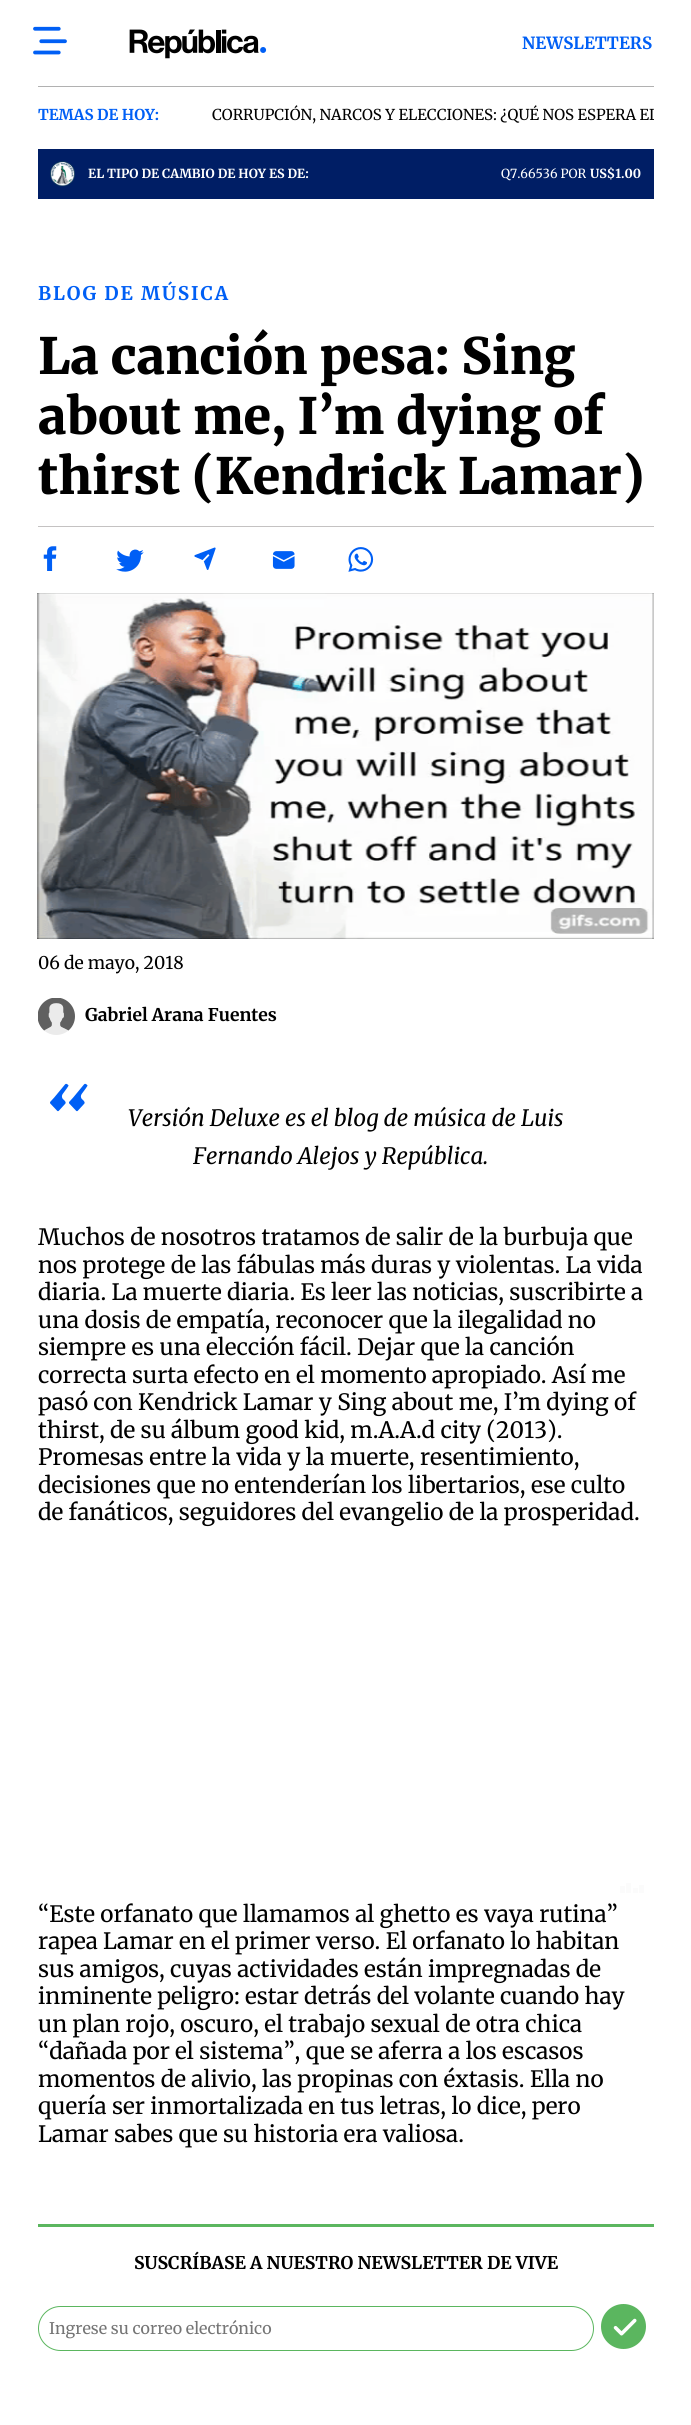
#include <cairo.h>
#include <math.h>
#include <stddef.h>

static cairo_t *c;
static void C(unsigned color){cairo_set_source_rgb(c, (color >> 16) / 255.0, (color >> 8 & 255) / 255.0, (color & 255) / 255.0);}
static void F(const char *family, double size, int italic, int bold){cairo_select_font_face(c, family, italic ? CAIRO_FONT_SLANT_ITALIC : CAIRO_FONT_SLANT_NORMAL,bold ? CAIRO_FONT_WEIGHT_BOLD : CAIRO_FONT_WEIGHT_NORMAL);cairo_set_font_size(c, size);}
static void T(double x, double y, const char *s){cairo_move_to(c, x, y);cairo_show_text(c, s);}
static void L(double x, double y, const char *s, double letter, double word){cairo_move_to(c, x, y);while (*s) {char ch[5] = {0};int n = 0;do ch[n++] = *s++; while ((*s & 0xC0) == 0x80);cairo_show_text(c, ch);cairo_rel_move_to(c, letter + word * (*ch == ' '), 0);}}
static void R(double x, double y, double w, double h){cairo_rectangle(c, x, y, w, h);cairo_fill(c);}
static void Q(double x, double y, double w, double h, double r){cairo_new_sub_path(c);cairo_arc(c, x + w - r, y + h - r, r, 0, M_PI / 2);cairo_arc(c, x + r, y + h - r, r, M_PI / 2, M_PI);cairo_arc(c, x + r, y + r, r, M_PI, 1.5 * M_PI);cairo_arc(c, x + w - r, y + r, r, 1.5 * M_PI, 2 * M_PI);cairo_close_path(c);}
static void I(const char *path, double x, double y, double w, double h){cairo_surface_t *image = cairo_image_surface_create_from_png(path);cairo_save(c);cairo_set_source_surface(c, image, x, y);cairo_rectangle(c, x, y, w, h);cairo_fill(c);cairo_restore(c);cairo_surface_destroy(image);}
int main(void) {
cairo_surface_t *surface = cairo_image_surface_create(CAIRO_FORMAT_RGB24, 691, 2425);
c = cairo_create(surface);
cairo_font_options_t *options = cairo_font_options_create();
cairo_font_options_set_hint_metrics(options, CAIRO_HINT_METRICS_OFF);
cairo_font_options_set_hint_style(options, CAIRO_HINT_STYLE_NONE);
cairo_set_font_options(c, options);
cairo_set_miter_limit(c, 4);
C(0xffffff);
cairo_paint(c);
I("1.png",33,26,34,29);
I("2.png",129,29,138,30);
F("Merriweather",16.75,0,1);
C(0x005ff5);
T(522,49,"NEWSLETTERS");
C(0xb1b1b1);
R(38,86,616,1);
F("Merriweather",15,0,1);
C(0x005ff5);
T(38,120,"TEMAS DE HOY:");
cairo_save(c);
cairo_rectangle(c,38,104,616,20);
cairo_clip(c);
F("Merriweather",15,0,0);
C(0x000000);
T(212,120,"CORRUPCIÓN, NARCOS Y ELECCIONES: ¿QUÉ NOS ESPERA EL");
cairo_restore(c);
C(0x001e65);
R(38,149,616,50);
I("3.png",50,161,25,26);
F("Merriweather",12.5,0,1);
C(0xffffff);
T(88,178,"EL TIPO DE CAMBIO DE HOY ES DE:");
F("Merriweather",12.5,0,0);
T(501,178,"Q7.66536 POR");
F("Merriweather",12.5,0,1);
T(590,178,"US$1.00");
F("Merriweather",18.75,0,1);
C(0x005ff5);
L(38,300,"BLOG DE MÚSICA",1.9,0);
F("Merriweather Black",50,0,0);
C(0x000000);
T(38,374,"La canción pesa: Sing");
T(38,434,"about me, I’m dying of");
T(38,494,"thirst (Kendrick Lamar)");
C(0xc4c2c2);
R(38,526,616,1);
I("4.png",43,546,14,25);
I("5.png",116,549,28,23);
I("6.png",194,547,22,23);
I("7.png",272,551,23,18);
I("8.png",348,547,26,25);
I("9.png",37,593,617,346);
F("Merriweather",17.5,0,0);
C(0x000000);
T(38,969,"06 de mayo, 2018");
I("10.png",38,998,37,37);
F("Merriweather",17.5,0,1);
T(85,1021,"Gabriel Arana Fuentes");
I("11.png",50,1083,38,29);
F("Merriweather",22.5,1,0);
T(128,1126,"Versión Deluxe es el blog de música de Luis");
T(193,1164,"Fernando Alejos y República.");
F("Merriweather",22.5,0,0);
T(38,1245,"Muchos de nosotros tratamos de salir de la burbuja que");
T(38,1273,"nos protege de las fábulas más duras y violentas. La vida");
T(38,1300,"diaria. La muerte diaria. Es leer las noticias, suscribirte a");
T(38,1328,"una dosis de empatía, reconocer que la ilegalidad no");
T(38,1355,"siempre es una elección fácil. Dejar que la canción");
T(38,1383,"correcta surta efecto en el momento apropiado. Así me");
T(38,1410,"pasó con Kendrick Lamar y Sing about me, I’m dying of");
T(38,1438,"thirst, de su álbum good kid, m.A.A.d city (2013).");
T(38,1465,"Promesas entre la vida y la muerte, resentimiento,");
T(38,1493,"decisiones que no entenderían los libertarios, ese culto");
T(38,1520,"de fanáticos, seguidores del evangelio de la prosperidad.");
C(0xfbfbfb);
R(620,1886,5,7);
R(626,1883,5,10);
R(633,1888,5,5);
R(639,1885,5,8);
C(0x000000);
T(38,1922,"“Este orfanato que llamamos al ghetto es vaya rutina”");
T(38,1949,"rapea Lamar en el primer verso. El orfanato lo habitan");
T(38,1977,"sus amigos, cuyas actividades están impregnadas de");
T(38,2004,"inminente peligro: estar detrás del volante cuando hay");
T(38,2032,"un plan rojo, oscuro, el trabajo sexual de otra chica");
T(38,2059,"“dañada por el sistema”, que se aferra a los escasos");
T(38,2087,"momentos de alivio, las propinas con éxtasis. Ella no");
T(38,2114,"quería ser inmortalizada en tus letras, lo dice, pero");
T(38,2142,"Lamar sabes que su historia era valiosa.");
C(0x5bb65f);
R(38,2224,616,3);
F("Merriweather",17.5,0,1);
C(0x000000);
T(134,2269,"SUSCRÍBASE A NUESTRO NEWSLETTER DE VIVE");
Q(38.5,2306.5,555,44,22);
C(0x5bb65f);
cairo_set_line_width(c,1);
cairo_stroke(c);
F("Merriweather",16,0,0);
C(0x757575);
T(49,2334,"Ingrese su correo electrónico");
I("12.png",601,2304,45,45);
cairo_surface_write_to_png(surface, "o.png");
cairo_font_options_destroy(options);
cairo_destroy(c);
cairo_surface_destroy(surface);
return 0;
}
